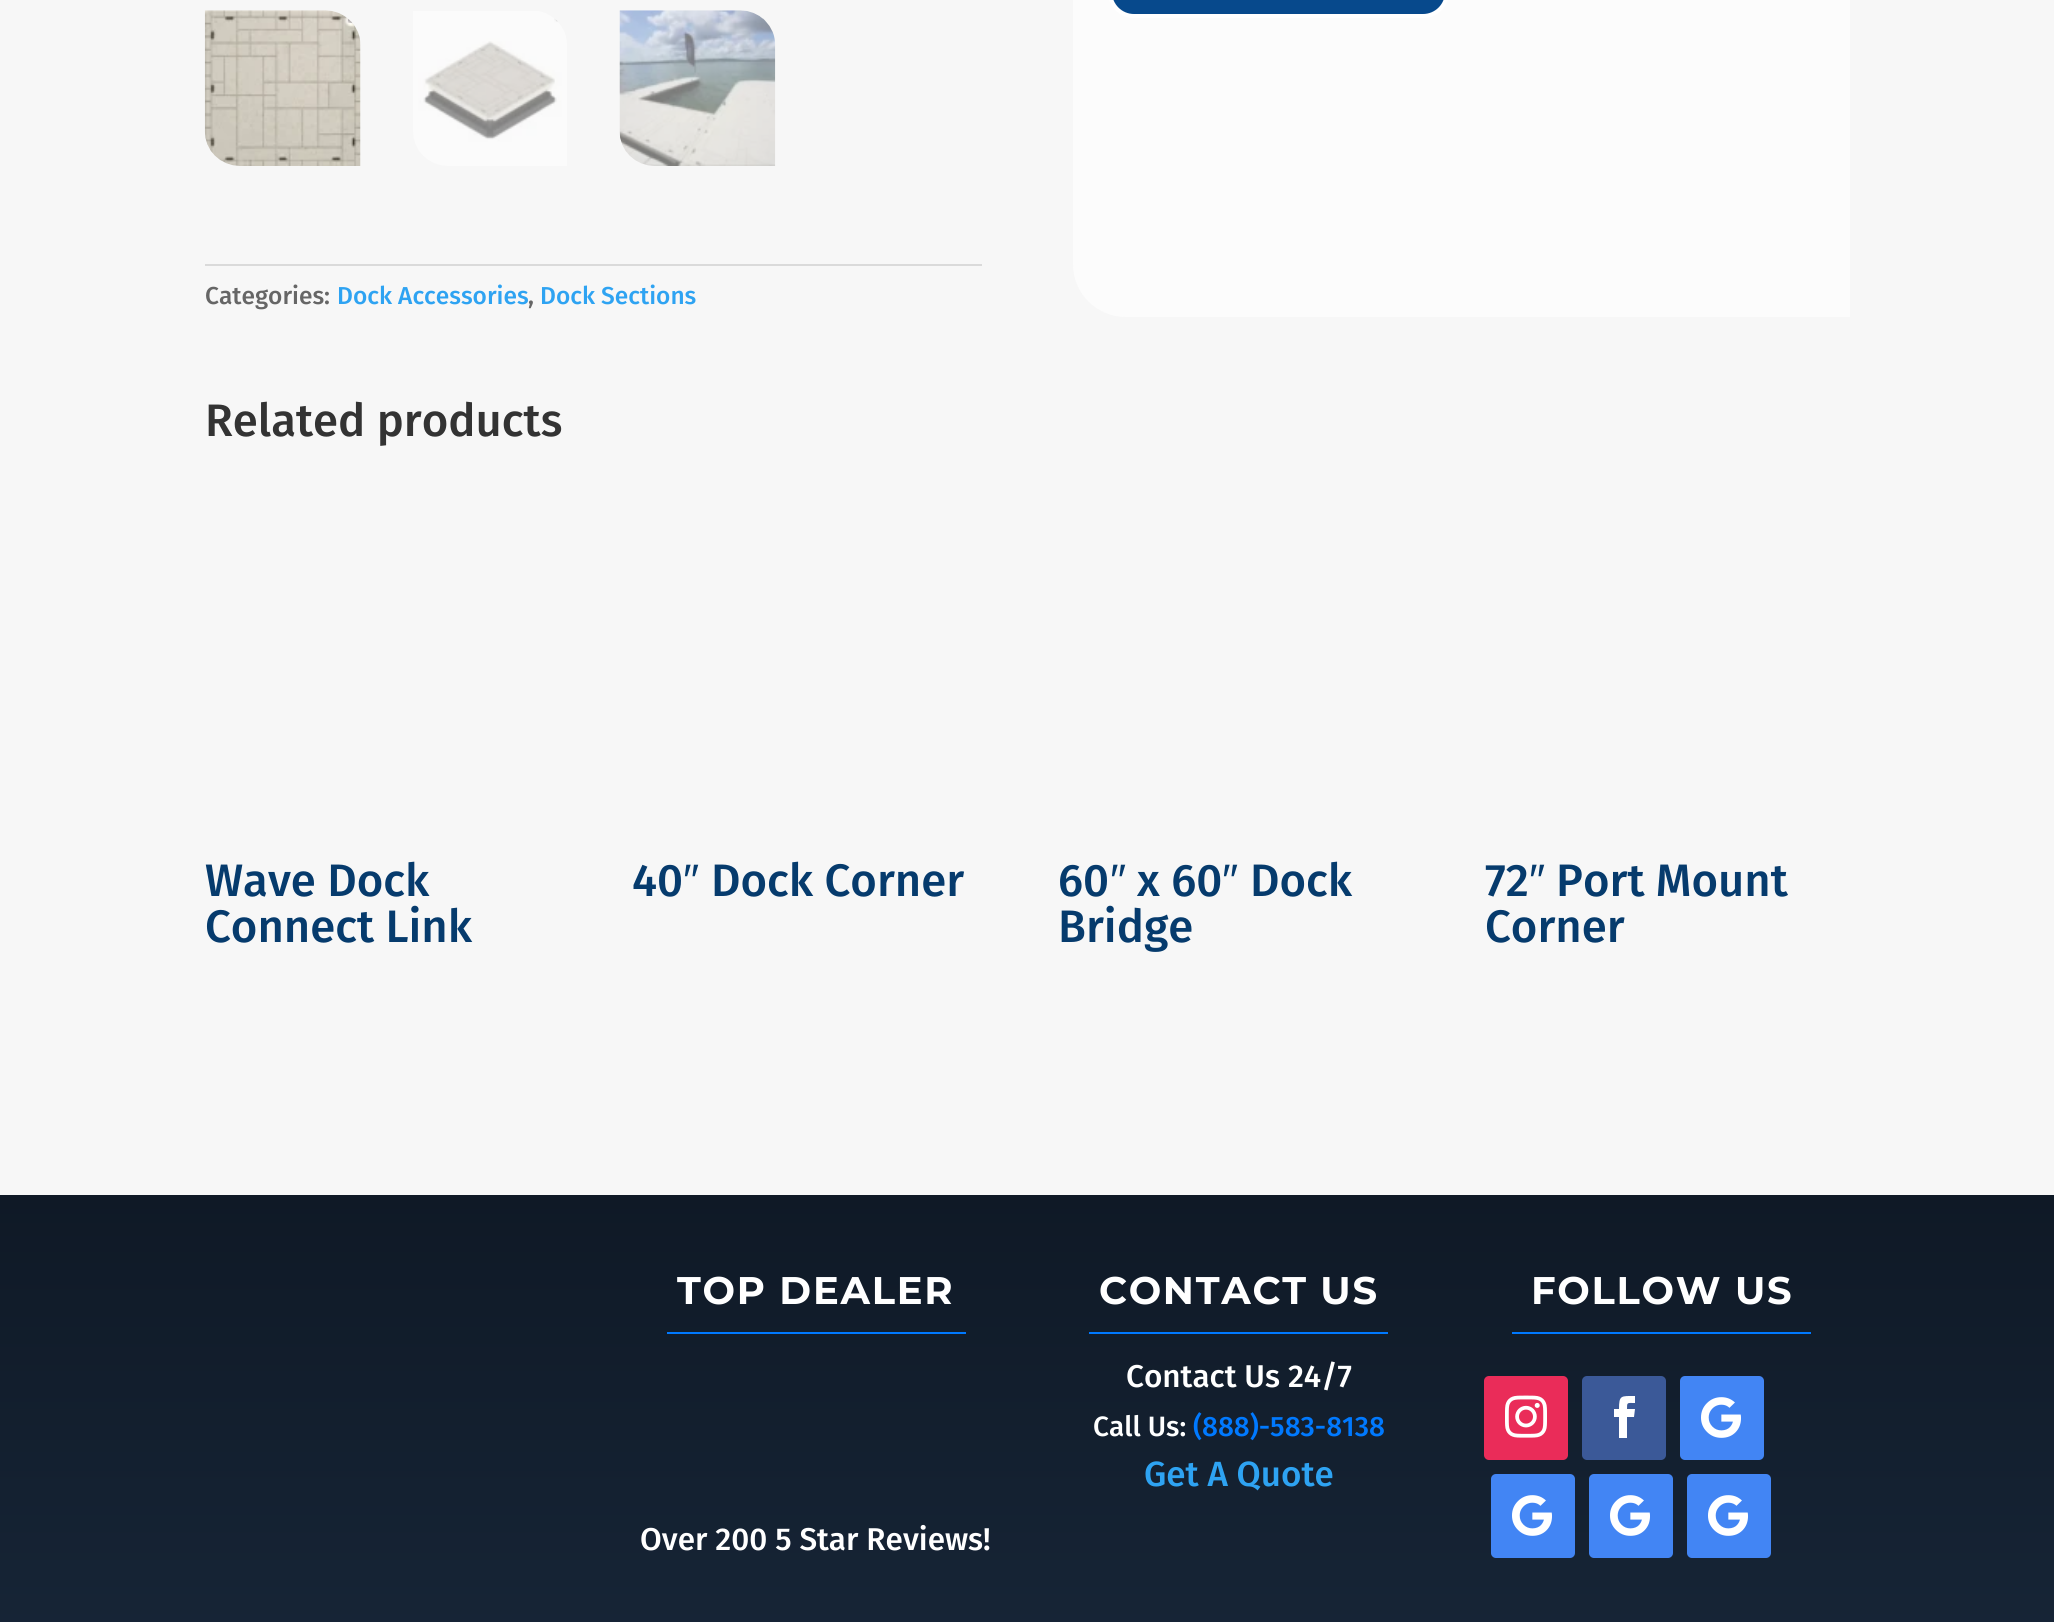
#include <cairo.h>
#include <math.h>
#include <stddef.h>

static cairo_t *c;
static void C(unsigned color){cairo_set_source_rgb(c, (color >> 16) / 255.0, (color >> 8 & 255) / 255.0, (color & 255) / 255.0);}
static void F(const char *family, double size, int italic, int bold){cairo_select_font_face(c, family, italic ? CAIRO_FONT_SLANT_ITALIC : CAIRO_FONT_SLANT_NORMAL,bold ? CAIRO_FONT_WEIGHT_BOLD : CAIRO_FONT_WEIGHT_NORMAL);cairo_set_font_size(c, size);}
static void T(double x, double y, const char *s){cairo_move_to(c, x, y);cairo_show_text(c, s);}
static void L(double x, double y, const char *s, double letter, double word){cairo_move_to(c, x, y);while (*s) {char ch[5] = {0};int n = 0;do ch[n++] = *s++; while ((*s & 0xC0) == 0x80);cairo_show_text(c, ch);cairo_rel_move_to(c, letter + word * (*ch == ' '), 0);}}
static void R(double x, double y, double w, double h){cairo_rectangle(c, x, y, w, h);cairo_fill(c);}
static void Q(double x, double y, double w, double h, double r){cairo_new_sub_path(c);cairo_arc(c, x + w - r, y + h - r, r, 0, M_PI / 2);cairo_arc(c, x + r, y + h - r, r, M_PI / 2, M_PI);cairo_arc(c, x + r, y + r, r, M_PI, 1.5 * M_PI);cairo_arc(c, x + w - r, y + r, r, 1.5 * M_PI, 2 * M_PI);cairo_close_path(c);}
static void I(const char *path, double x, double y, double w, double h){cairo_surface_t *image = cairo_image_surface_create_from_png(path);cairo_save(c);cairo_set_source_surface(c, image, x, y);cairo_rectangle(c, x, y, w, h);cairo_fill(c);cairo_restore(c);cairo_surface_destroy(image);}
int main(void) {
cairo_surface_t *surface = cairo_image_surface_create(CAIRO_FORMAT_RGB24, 2054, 1622);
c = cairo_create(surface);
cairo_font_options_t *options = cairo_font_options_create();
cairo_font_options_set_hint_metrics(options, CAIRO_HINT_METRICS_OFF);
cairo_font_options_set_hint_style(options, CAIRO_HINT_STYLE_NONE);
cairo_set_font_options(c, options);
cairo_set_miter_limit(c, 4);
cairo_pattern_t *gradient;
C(0xf7f7f7);
cairo_paint(c);
I("1.png",204,10,157,156);
I("2.png",413,11,154,155);
I("3.png",619,10,157,156);
C(0xdadada);
R(205,264,777,2);
F("Fira Sans Medium",24.5,0,0);
C(0x666666);
T(205,304,"Categories:");
C(0x2ea3f2);
T(337,304,"Dock Accessories");
C(0x666666);
T(528,304,",");
C(0x2ea3f2);
T(540,304,"Dock Sections");
C(0xfcfcfc);
cairo_new_path(c);
cairo_move_to(c,1073,-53);
cairo_line_to(c,1797,-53);
cairo_curve_to(c,1826.5,-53,1850,-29.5,1850,0);
cairo_line_to(c,1850,317);
cairo_line_to(c,1126,317);
cairo_curve_to(c,1096.5,317,1073,293.5,1073,264);
cairo_close_path(c);
cairo_fill(c);
C(0x07498c);
Q(1110,-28,337,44,24);
cairo_fill_preserve(c);
C(0xffffff);
cairo_set_line_width(c,4);
cairo_stroke(c);
F("Fira Sans Medium",45.5,0,0);
C(0x333333);
T(205,436,"Related products");
C(0x063b6d);
T(205,896,"Wave Dock");
T(205,942,"Connect Link");
T(632,896,"40");
F("Liberation Sans",45.5,0,0);
T(683,896,"″");
F("Fira Sans Medium",45.5,0,0);
T(711,896,"Dock Corner");
T(1058,896,"60");
F("Liberation Sans",45.5,0,0);
T(1110,896,"″");
F("Fira Sans Medium",45.5,0,0);
T(1137,896,"x 60");
F("Liberation Sans",45.5,0,0);
T(1222,896,"″");
F("Fira Sans Medium",45.5,0,0);
T(1250,896,"Dock");
T(1058,942,"Bridge");
T(1485,896,"72");
F("Liberation Sans",45.5,0,0);
T(1529,896,"″");
F("Fira Sans Medium",45.5,0,0);
T(1556,896,"Port Mount");
T(1485,942,"Corner");
gradient = cairo_pattern_create_linear(1027,1195,1027,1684);
cairo_pattern_add_color_stop_rgba(gradient,0,0.059,0.098,0.149,1);
cairo_pattern_add_color_stop_rgba(gradient,1,0.09,0.149,0.22,1);
cairo_set_source(c,gradient);
cairo_pattern_destroy(gradient);
R(0,1195,2054,427);
F("Montserrat",38.5,0,1);
C(0xffffff);
L(677,1304,"TOP DEALER",1.75,0);
C(0x0079ff);
R(667,1332,299,2);
F("Fira Sans Medium",31.5,0,0);
C(0xffffff);
T(640,1550,"Over 200 5 Star Reviews!");
F("Montserrat",38.5,0,1);
L(1099,1304,"CONTACT US",1.75,0);
C(0x0079ff);
R(1089,1332,299,2);
F("Fira Sans Medium",31.5,0,0);
C(0xffffff);
T(1126,1387,"Contact Us 24/7");
F("Fira Sans Medium",28,0,0);
T(1093,1436,"Call Us:");
C(0x0079ff);
T(1193,1436,"(888)-583-8138");
F("Fira Sans Medium",35,0,0);
C(0x2ea3f2);
T(1144,1486,"Get A Quote");
F("Montserrat",38.5,0,1);
C(0xffffff);
L(1531,1304,"FOLLOW US",1.75,0);
C(0x0079ff);
R(1512,1332,299,2);
C(0xea2c59);
Q(1484,1376,84,84,5);
cairo_fill(c);
I("4.png",1505,1395,42,43);
C(0x3b5998);
Q(1582,1376,84,84,5);
cairo_fill(c);
C(0xffffff);
cairo_new_path(c);
cairo_move_to(c,1619,1438);
cairo_line_to(c,1627,1438);
cairo_line_to(c,1627,1417);
cairo_line_to(c,1634,1417);
cairo_line_to(c,1635,1409);
cairo_line_to(c,1627,1409);
cairo_curve_to(c,1627,1402,1627,1403,1635,1403);
cairo_line_to(c,1635,1396);
cairo_curve_to(c,1621,1396,1619,1395,1619,1409);
cairo_line_to(c,1614,1409);
cairo_line_to(c,1614,1417);
cairo_line_to(c,1619,1417);
cairo_close_path(c);
cairo_fill(c);
C(0x4285f4);
Q(1680,1376,84,84,5);
cairo_fill(c);
I("5.png",1701,1397,40,41);
Q(1491,1474,84,84,5);
cairo_fill(c);
I("5.png",1512,1495,40,41);
Q(1589,1474,84,84,5);
cairo_fill(c);
I("5.png",1610,1495,40,41);
Q(1687,1474,84,84,5);
cairo_fill(c);
I("5.png",1708,1495,40,41);
cairo_surface_write_to_png(surface, "o.png");
cairo_font_options_destroy(options);
cairo_destroy(c);
cairo_surface_destroy(surface);
return 0;
}
